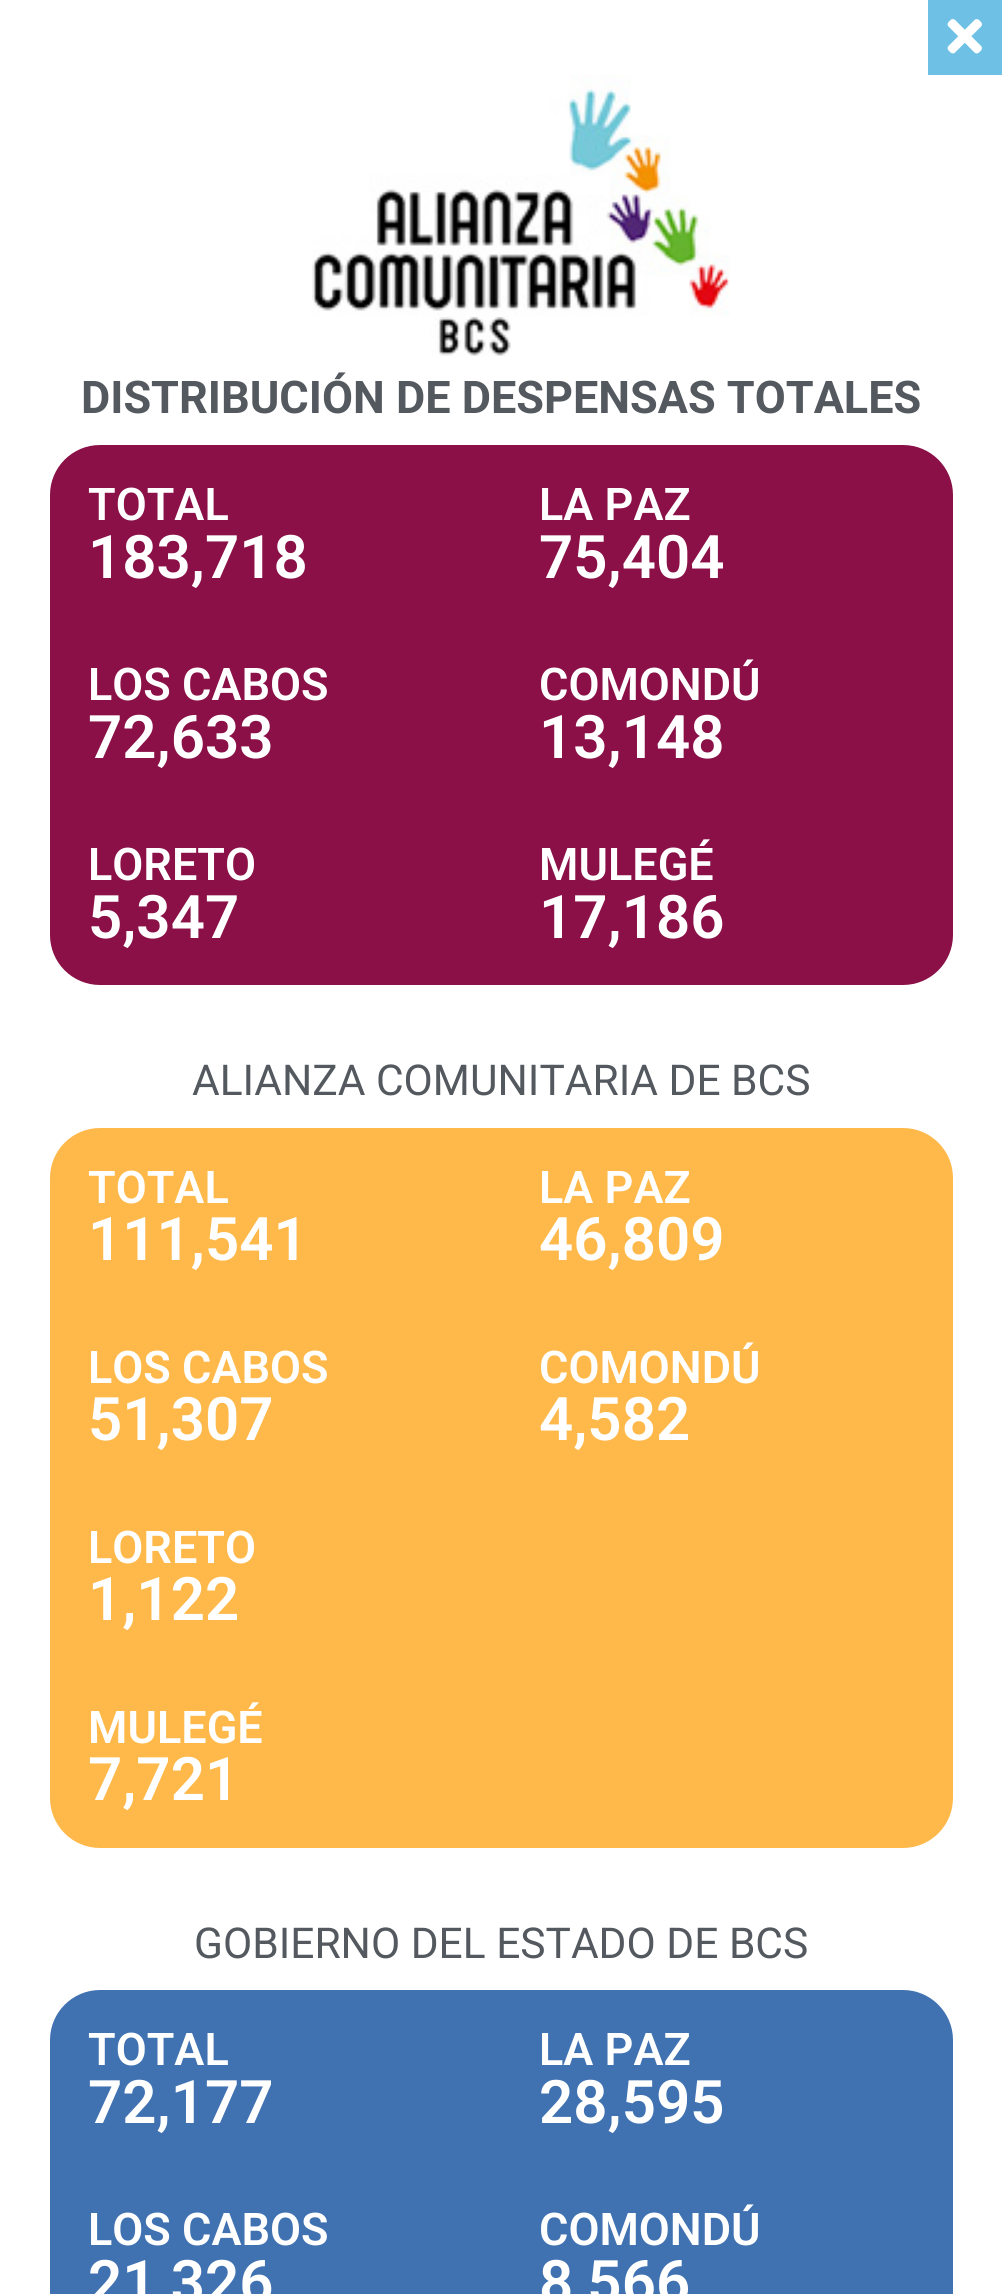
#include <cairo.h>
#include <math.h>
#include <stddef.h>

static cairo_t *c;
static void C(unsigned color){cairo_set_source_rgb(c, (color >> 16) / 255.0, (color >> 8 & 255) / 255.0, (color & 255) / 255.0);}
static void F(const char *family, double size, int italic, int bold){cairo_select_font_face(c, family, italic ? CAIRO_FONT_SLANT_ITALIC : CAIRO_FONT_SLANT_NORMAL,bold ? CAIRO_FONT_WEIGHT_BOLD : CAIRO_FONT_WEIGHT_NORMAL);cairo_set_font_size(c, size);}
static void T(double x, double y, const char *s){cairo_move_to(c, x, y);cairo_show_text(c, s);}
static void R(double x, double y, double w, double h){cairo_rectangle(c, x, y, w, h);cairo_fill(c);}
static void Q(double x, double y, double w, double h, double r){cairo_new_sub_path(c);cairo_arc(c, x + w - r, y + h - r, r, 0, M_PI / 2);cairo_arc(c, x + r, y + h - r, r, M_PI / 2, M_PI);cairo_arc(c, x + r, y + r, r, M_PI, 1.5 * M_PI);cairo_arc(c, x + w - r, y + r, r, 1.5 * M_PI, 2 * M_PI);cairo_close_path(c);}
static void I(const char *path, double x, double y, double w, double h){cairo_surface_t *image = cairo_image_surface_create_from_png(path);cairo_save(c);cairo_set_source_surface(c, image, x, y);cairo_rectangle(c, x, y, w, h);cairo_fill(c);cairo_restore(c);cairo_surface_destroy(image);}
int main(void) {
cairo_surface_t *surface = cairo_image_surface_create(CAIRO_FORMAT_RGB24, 1002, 2294);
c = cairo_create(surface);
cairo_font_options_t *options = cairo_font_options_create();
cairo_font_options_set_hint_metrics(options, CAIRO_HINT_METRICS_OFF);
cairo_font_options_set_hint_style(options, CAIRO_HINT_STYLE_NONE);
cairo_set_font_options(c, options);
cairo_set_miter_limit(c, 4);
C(0xffffff);
cairo_paint(c);
C(0x6ec1e4);
R(928,0,74,75);
I("1.png",947,19,35,35);
I("2.png",311,75,419,281);
F("Roboto",45,0,1);
C(0x54595f);
T(81,413,"DISTRIBUCIÓN DE DESPENSAS TOTALES");
C(0x8a1047);
Q(50,445,903,540,50);
cairo_fill(c);
F("Roboto SemiBold",45,0,0);
C(0xffffff);
T(88,520,"TOTAL");
F("Roboto SemiBold",60,0,0);
T(88,578,"183,718");
F("Roboto SemiBold",45,0,0);
T(539,520,"LA PAZ");
F("Roboto SemiBold",60,0,0);
T(539,578,"75,404");
F("Roboto SemiBold",45,0,0);
T(88,700,"LOS CABOS");
F("Roboto SemiBold",60,0,0);
T(88,758,"72,633");
F("Roboto SemiBold",45,0,0);
T(539,700,"COMONDÚ");
F("Roboto SemiBold",60,0,0);
T(539,758,"13,148");
F("Roboto SemiBold",45,0,0);
T(88,880,"LORETO");
F("Roboto SemiBold",60,0,0);
T(88,938,"5,347");
F("Roboto SemiBold",45,0,0);
T(539,880,"MULEGÉ");
F("Roboto SemiBold",60,0,0);
T(539,938,"17,186");
F("Roboto",42.5,0,0);
C(0x54595f);
T(192,1095,"ALIANZA COMUNITARIA DE BCS");
C(0xffb94b);
Q(50,1128,903,720,50);
cairo_fill(c);
F("Roboto SemiBold",45,0,0);
C(0xffffff);
T(88,1203,"TOTAL");
F("Roboto SemiBold",60,0,0);
T(88,1260,"111,541");
F("Roboto SemiBold",45,0,0);
T(539,1203,"LA PAZ");
F("Roboto SemiBold",60,0,0);
T(539,1260,"46,809");
F("Roboto SemiBold",45,0,0);
T(88,1383,"LOS CABOS");
F("Roboto SemiBold",60,0,0);
T(88,1440,"51,307");
F("Roboto SemiBold",45,0,0);
T(539,1383,"COMONDÚ");
F("Roboto SemiBold",60,0,0);
T(539,1440,"4,582");
F("Roboto SemiBold",45,0,0);
T(88,1563,"LORETO");
F("Roboto SemiBold",60,0,0);
T(88,1620,"1,122");
F("Roboto SemiBold",45,0,0);
T(88,1743,"MULEGÉ");
F("Roboto SemiBold",60,0,0);
T(88,1800,"7,721");
F("Roboto",42.5,0,0);
C(0x54595f);
T(194,1958,"GOBIERNO DEL ESTADO DE BCS");
C(0x4072b2);
cairo_new_path(c);
cairo_move_to(c,100,1990);
cairo_line_to(c,903,1990);
cairo_curve_to(c,930.5,1990,953,2012.5,953,2040);
cairo_line_to(c,953,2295);
cairo_line_to(c,50,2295);
cairo_line_to(c,50,2040);
cairo_curve_to(c,50,2012.5,72.5,1990,100,1990);
cairo_close_path(c);
cairo_fill(c);
F("Roboto SemiBold",45,0,0);
C(0xffffff);
T(88,2065,"TOTAL");
F("Roboto SemiBold",60,0,0);
T(88,2123,"72,177");
F("Roboto SemiBold",45,0,0);
T(539,2065,"LA PAZ");
F("Roboto SemiBold",60,0,0);
T(539,2123,"28,595");
F("Roboto SemiBold",45,0,0);
T(88,2245,"LOS CABOS");
F("Roboto SemiBold",60,0,0);
T(88,2303,"21,326");
F("Roboto SemiBold",45,0,0);
T(539,2245,"COMONDÚ");
F("Roboto SemiBold",60,0,0);
T(539,2303,"8,566");
cairo_surface_write_to_png(surface, "o.png");
cairo_font_options_destroy(options);
cairo_destroy(c);
cairo_surface_destroy(surface);
return 0;
}
